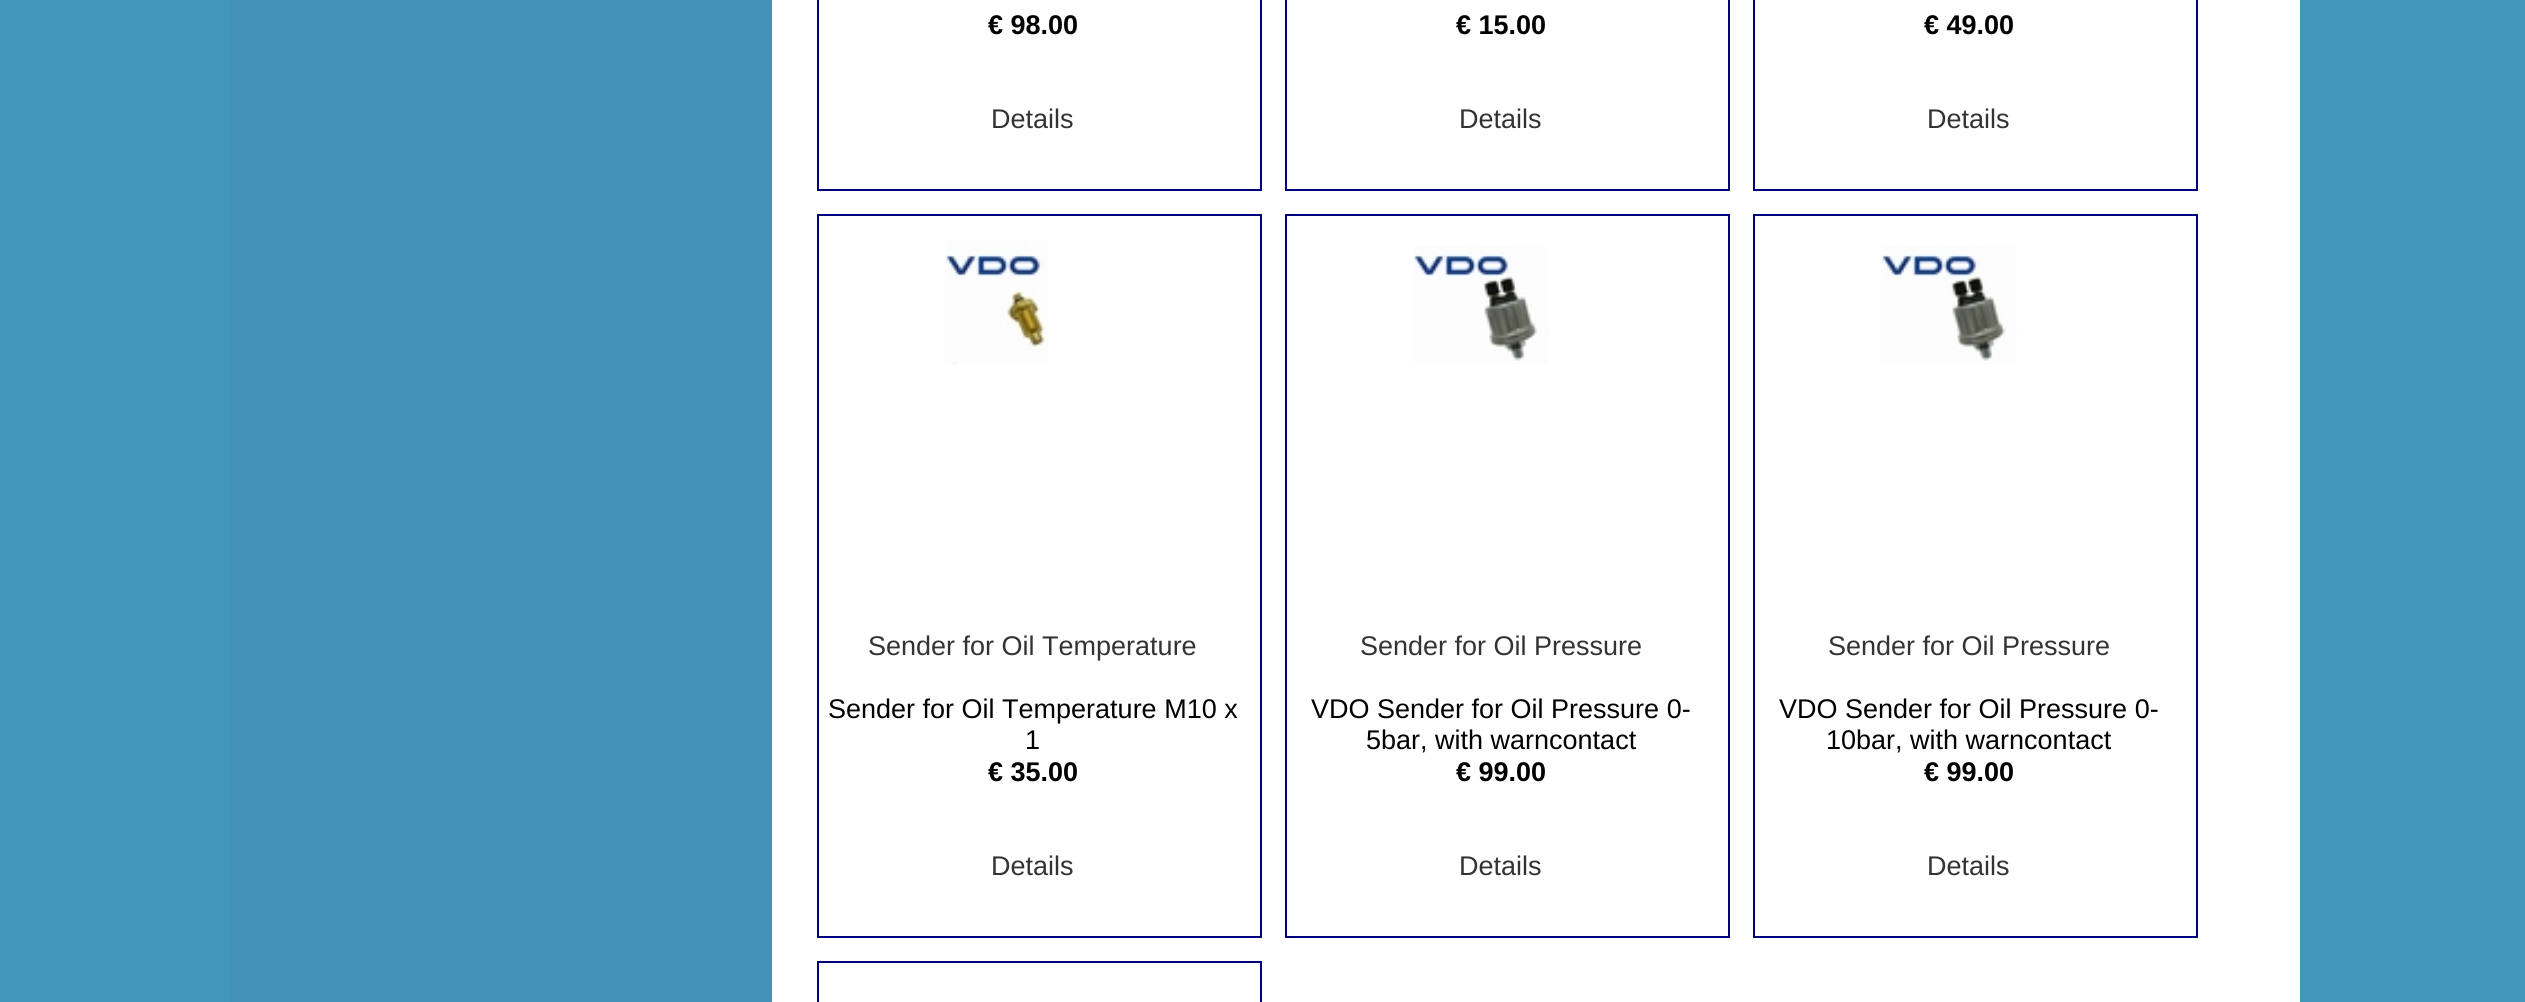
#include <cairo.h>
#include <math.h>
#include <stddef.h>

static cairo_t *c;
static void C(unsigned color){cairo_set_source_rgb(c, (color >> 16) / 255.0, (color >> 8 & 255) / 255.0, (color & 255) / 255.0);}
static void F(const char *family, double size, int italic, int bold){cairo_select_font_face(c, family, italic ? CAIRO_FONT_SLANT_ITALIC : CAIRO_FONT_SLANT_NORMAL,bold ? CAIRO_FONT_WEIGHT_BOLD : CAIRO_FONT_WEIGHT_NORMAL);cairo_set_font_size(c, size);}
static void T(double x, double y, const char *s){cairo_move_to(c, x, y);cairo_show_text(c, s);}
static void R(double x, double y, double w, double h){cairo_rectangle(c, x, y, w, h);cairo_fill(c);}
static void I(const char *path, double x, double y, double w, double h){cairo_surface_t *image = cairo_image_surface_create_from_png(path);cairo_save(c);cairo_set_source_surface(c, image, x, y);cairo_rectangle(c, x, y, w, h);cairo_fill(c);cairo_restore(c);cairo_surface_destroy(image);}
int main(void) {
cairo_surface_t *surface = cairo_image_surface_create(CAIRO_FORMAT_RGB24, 2525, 1002);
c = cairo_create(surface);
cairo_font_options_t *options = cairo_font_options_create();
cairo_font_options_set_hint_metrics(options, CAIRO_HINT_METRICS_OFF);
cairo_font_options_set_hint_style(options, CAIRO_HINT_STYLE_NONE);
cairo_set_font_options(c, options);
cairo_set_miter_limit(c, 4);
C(0x4296bb);
cairo_paint(c);
C(0xffffff);
R(772,0,1528,1002);
C(0x4292b7);
R(230,0,542,1002);
cairo_rectangle(c,818,-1,443,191);
C(0x000080);
cairo_stroke(c);
F("Liberation Sans",27,0,1);
C(0x000000);
T(988,34,"€ 98.00");
F("Liberation Sans",27,0,0);
C(0x333333);
T(991,128,"Details");
cairo_rectangle(c,1286,-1,443,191);
C(0x000080);
cairo_stroke(c);
F("Liberation Sans",27,0,1);
C(0x000000);
T(1456,34,"€ 15.00");
F("Liberation Sans",27,0,0);
C(0x333333);
T(1459,128,"Details");
cairo_rectangle(c,1754,-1,443,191);
C(0x000080);
cairo_stroke(c);
F("Liberation Sans",27,0,1);
C(0x000000);
T(1924,34,"€ 49.00");
F("Liberation Sans",27,0,0);
C(0x333333);
T(1927,128,"Details");
cairo_rectangle(c,818,215,443,722);
C(0x000080);
cairo_stroke(c);
I("1.png",945,240,103,125);
C(0x333333);
T(868,655,"Sender for Oil Temperature");
C(0x000000);
T(828,718,"Sender for Oil Temperature M10 x");
T(1025,749,"1");
F("Liberation Sans",27,0,1);
T(988,781,"€ 35.00");
F("Liberation Sans",27,0,0);
C(0x333333);
T(991,875,"Details");
cairo_rectangle(c,1286,215,443,722);
C(0x000080);
cairo_stroke(c);
I("2.png",1413,246,136,118);
C(0x333333);
T(1360,655,"Sender for Oil Pressure");
C(0x000000);
T(1311,718,"VDO Sender for Oil Pressure 0-");
T(1366,749,"5bar, with warncontact");
F("Liberation Sans",27,0,1);
T(1456,781,"€ 99.00");
F("Liberation Sans",27,0,0);
C(0x333333);
T(1459,875,"Details");
cairo_rectangle(c,1754,215,443,722);
C(0x000080);
cairo_stroke(c);
I("3.png",1881,246,136,118);
C(0x333333);
T(1828,655,"Sender for Oil Pressure");
C(0x000000);
T(1779,718,"VDO Sender for Oil Pressure 0-");
T(1826,749,"10bar, with warncontact");
F("Liberation Sans",27,0,1);
T(1924,781,"€ 99.00");
F("Liberation Sans",27,0,0);
C(0x333333);
T(1927,875,"Details");
cairo_rectangle(c,818,962,443,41);
C(0x000080);
cairo_stroke(c);
cairo_surface_write_to_png(surface, "o.png");
cairo_font_options_destroy(options);
cairo_destroy(c);
cairo_surface_destroy(surface);
return 0;
}
